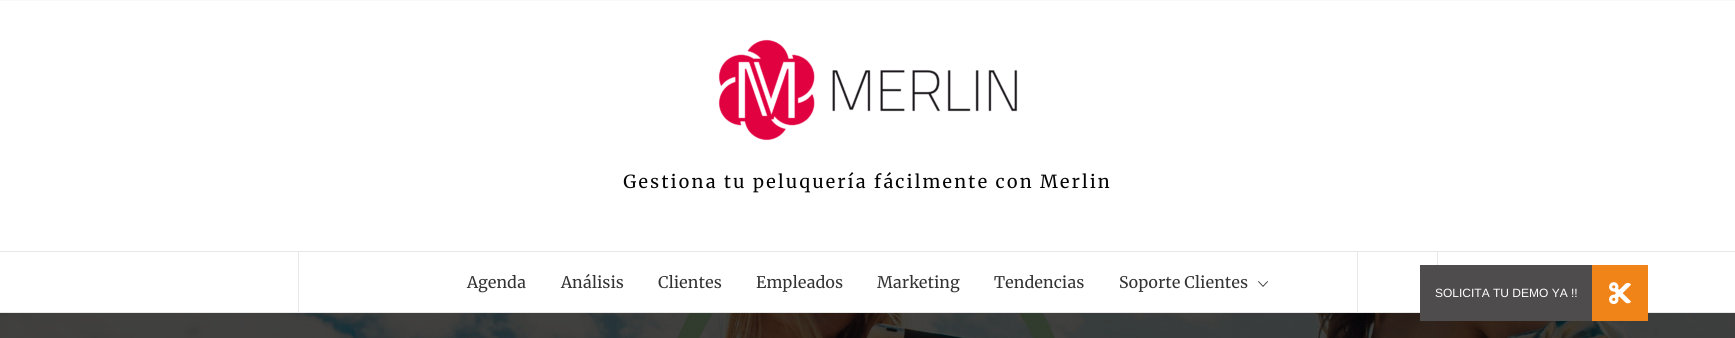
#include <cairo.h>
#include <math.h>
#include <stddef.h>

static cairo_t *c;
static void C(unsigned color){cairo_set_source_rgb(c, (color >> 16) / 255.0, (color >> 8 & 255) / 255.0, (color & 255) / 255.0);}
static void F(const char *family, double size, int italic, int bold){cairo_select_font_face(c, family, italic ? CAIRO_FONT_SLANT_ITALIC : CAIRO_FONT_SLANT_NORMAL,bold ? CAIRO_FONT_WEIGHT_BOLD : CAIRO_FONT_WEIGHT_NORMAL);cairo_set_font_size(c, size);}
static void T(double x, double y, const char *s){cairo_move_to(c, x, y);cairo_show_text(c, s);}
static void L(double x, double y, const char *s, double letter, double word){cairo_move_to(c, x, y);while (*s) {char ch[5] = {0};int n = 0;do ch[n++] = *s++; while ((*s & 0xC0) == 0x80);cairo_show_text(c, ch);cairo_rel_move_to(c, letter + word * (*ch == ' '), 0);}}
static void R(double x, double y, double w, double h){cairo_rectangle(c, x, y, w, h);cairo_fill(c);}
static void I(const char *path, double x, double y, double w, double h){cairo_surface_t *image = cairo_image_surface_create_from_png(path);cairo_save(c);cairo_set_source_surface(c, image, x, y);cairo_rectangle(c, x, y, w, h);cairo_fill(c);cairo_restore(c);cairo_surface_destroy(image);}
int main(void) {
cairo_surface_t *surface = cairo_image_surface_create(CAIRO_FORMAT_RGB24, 1735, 338);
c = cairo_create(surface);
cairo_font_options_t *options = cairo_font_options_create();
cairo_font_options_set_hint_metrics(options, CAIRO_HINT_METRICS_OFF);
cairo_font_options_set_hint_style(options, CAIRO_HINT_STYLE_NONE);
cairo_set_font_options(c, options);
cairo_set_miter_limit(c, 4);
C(0xffffff);
cairo_paint(c);
C(0xf9f9fb);
R(0,0,1735,1);
I("1.png",718,39,300,102);
F("Merriweather",18,0,0);
C(0x040404);
L(623,188,"Gestiona tu peluquería fácilmente con Merlin",2,0);
C(0xe8e8e8);
R(0,251,1735,1);
R(0,312,1735,1);
R(1437,252,1,13);
R(298,252,1,60);
F("Merriweather",16,0,0);
C(0x333333);
T(467,288,"Agenda");
T(561,288,"Análisis");
T(658,288,"Clientes");
T(756,288,"Empleados");
T(877,288,"Marketing");
T(994,288,"Tendencias");
T(1119,288,"Soporte Clientes");
I("2.png",1258,281,10,6);
C(0xe8e8e8);
R(1357,252,1,60);
I("3.png",0,313,1735,25);
C(0xf08419);
R(1592,265,56,56);
C(0x4e4c4c);
R(1420,265,172,56);
F("Liberation Sans",12,0,0);
C(0xffffff);
T(1435,297,"SOLICITA TU DEMO YA !!");
I("4.png",1609,282,22,23);
cairo_surface_write_to_png(surface, "o.png");
cairo_font_options_destroy(options);
cairo_destroy(c);
cairo_surface_destroy(surface);
return 0;
}
